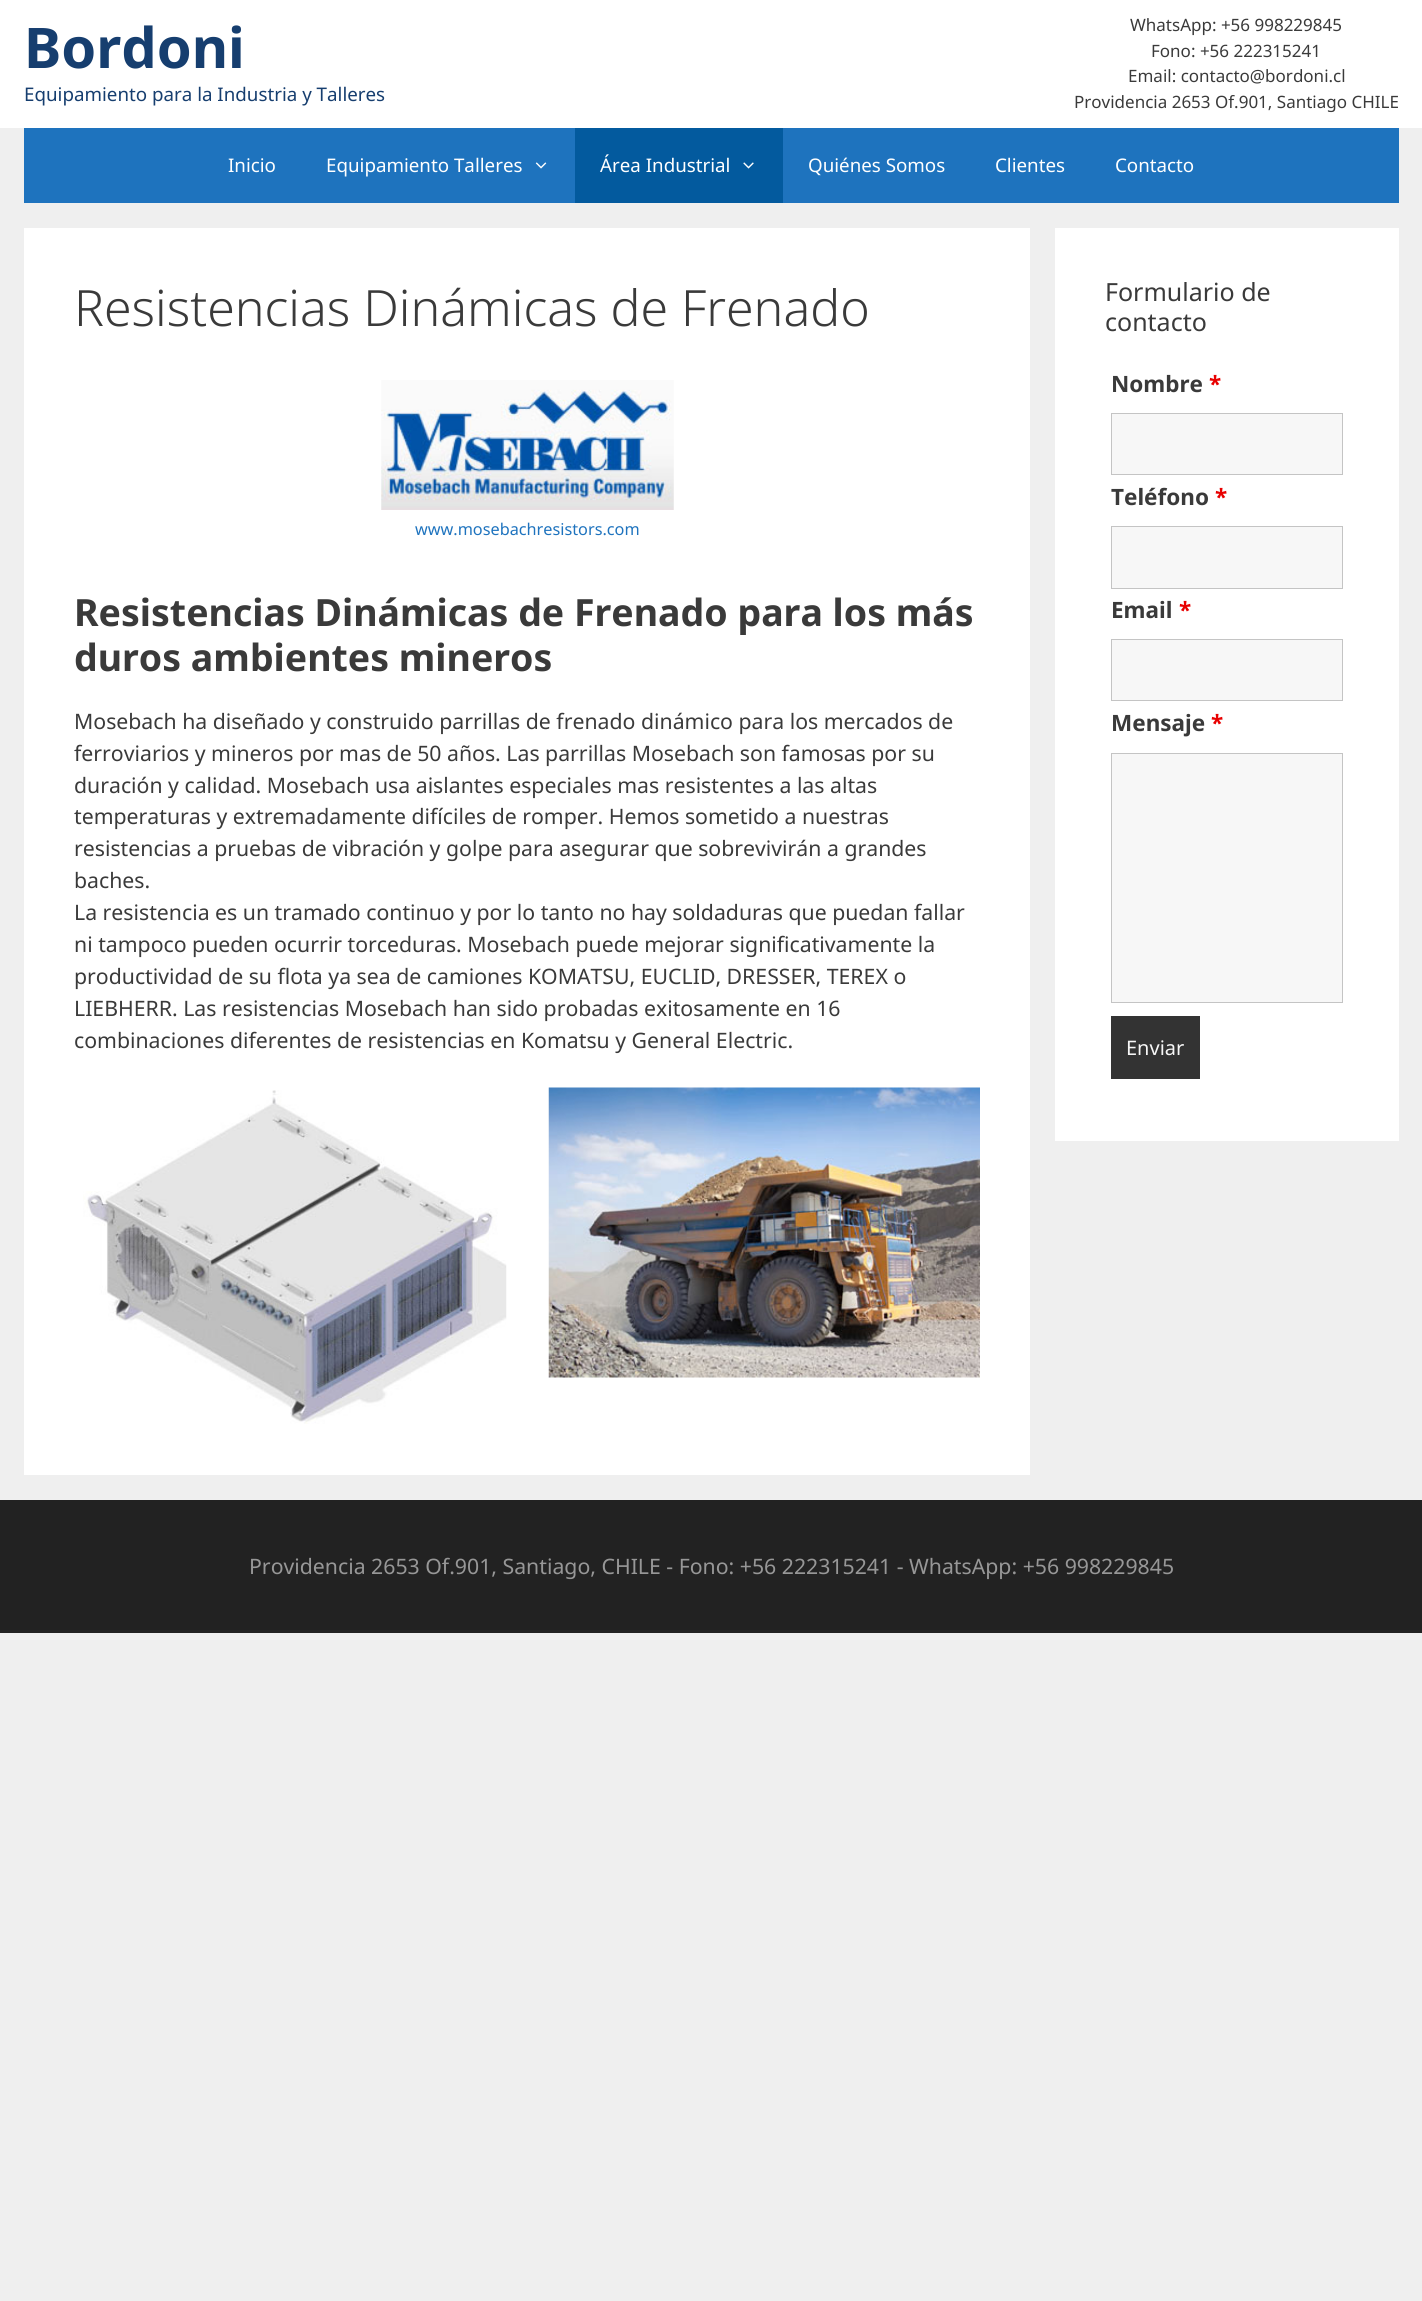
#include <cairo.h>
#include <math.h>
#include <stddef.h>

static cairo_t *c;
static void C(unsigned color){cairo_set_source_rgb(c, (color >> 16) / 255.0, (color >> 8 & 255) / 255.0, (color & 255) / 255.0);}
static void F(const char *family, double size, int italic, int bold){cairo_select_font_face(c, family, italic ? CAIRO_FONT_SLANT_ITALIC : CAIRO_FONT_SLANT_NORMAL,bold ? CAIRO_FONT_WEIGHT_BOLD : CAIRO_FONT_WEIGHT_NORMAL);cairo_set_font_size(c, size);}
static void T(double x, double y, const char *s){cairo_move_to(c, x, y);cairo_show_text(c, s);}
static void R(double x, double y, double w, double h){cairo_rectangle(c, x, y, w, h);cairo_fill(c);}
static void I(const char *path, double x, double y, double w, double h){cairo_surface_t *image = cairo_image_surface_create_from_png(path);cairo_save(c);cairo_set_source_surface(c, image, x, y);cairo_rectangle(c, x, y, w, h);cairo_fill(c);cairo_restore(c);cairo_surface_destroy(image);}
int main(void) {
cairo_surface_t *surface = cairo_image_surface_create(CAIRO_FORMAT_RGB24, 1422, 2301);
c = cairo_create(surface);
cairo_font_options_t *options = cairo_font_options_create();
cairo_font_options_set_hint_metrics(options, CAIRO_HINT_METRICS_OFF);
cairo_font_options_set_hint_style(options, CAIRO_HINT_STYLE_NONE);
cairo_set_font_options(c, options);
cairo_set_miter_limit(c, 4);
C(0xefefef);
cairo_paint(c);
C(0xffffff);
R(0,0,1422,128);
F("Noto Sans",56,0,1);
C(0x163e6f);
T(24,68,"Bordoni");
F("Noto Sans",18.75,0,0);
T(24,101,"Equipamiento para la Industria y Talleres");
F("Noto Sans",17,0,0);
C(0x3a3a3a);
T(1130,31,"WhatsApp: +56 998229845");
T(1151,57,"Fono: +56 222315241");
T(1128,82,"Email: contacto@bordoni.cl");
T(1074,108,"Providencia 2653 Of.901, Santiago CHILE");
C(0x1e73be);
R(24,128,1375,75);
F("Noto Sans",18.75,0,0);
C(0xffffff);
T(228,172,"Inicio");
T(326,172,"Equipamiento Talleres");
I("1.png",535,162,12,7);
C(0x035a9e);
R(575,128,208,75);
C(0xffffff);
T(600,172,"Área Industrial");
I("2.png",743,162,11,7);
T(808,172,"Quiénes Somos");
T(995,172,"Clientes");
T(1115,172,"Contacto");
R(24,228,1006,1247);
F("Noto Sans Light",50,0,0);
C(0x3a3a3a);
T(74,326,"Resistencias Dinámicas de Frenado");
I("3.png",381,380,293,130);
F("Noto Sans",16.25,0,0);
C(0x1e73be);
T(415,535,"www.mosebachresistors.com");
F("Noto Sans",37.5,0,1);
C(0x3a3a3a);
T(74,626,"Resistencias Dinámicas de Frenado para los más");
T(74,671,"duros ambientes mineros");
F("Noto Sans",21.25,0,0);
T(74,729,"Mosebach ha diseñado y construido parrillas de frenado dinámico para los mercados de");
T(74,761,"ferroviarios y mineros por mas de 50 años. Las parrillas Mosebach son famosas por su");
T(74,793,"duración y calidad. Mosebach usa aislantes especiales mas resistentes a las altas");
T(74,824,"temperaturas y extremadamente difíciles de romper. Hemos sometido a nuestras");
T(74,856,"resistencias a pruebas de vibración y golpe para asegurar que sobrevivirán a grandes");
T(74,888,"baches.");
T(74,920,"La resistencia es un tramado continuo y por lo tanto no hay soldaduras que puedan fallar");
T(74,952,"ni tampoco pueden ocurrir torceduras. Mosebach puede mejorar significativamente la");
T(74,984,"productividad de su flota ya sea de camiones KOMATSU, EUCLID, DRESSER, TEREX o");
T(74,1016,"LIEBHERR. Las resistencias Mosebach han sido probadas exitosamente en 16");
T(74,1048,"combinaciones diferentes de resistencias en Komatsu y General Electric.");
I("4.png",83,1090,424,334);
I("5.png",548,1087,432,291);
C(0xffffff);
R(1055,228,344,913);
F("Noto Sans",25,0,0);
C(0x3a3a3a);
T(1105,301,"Formulario de");
T(1105,331,"contacto");
F("Noto Sans",22.5,0,1);
T(1111,392,"Nombre");
C(0xe80000);
T(1209,392,"*");
C(0xf7f7f7);
cairo_rectangle(c,1111.5,413.5,231,61);
cairo_fill_preserve(c);
C(0xc4c4c4);
cairo_set_line_width(c,1);
cairo_stroke(c);
C(0x3a3a3a);
T(1111,505,"Teléfono");
C(0xe80000);
T(1215,505,"*");
C(0xf7f7f7);
cairo_rectangle(c,1111.5,526.5,231,62);
cairo_fill_preserve(c);
C(0xc4c4c4);
cairo_stroke(c);
C(0x3a3a3a);
T(1111,618,"Email");
C(0xe80000);
T(1179,618,"*");
C(0xf7f7f7);
cairo_rectangle(c,1111.5,639.5,231,61);
cairo_fill_preserve(c);
C(0xc4c4c4);
cairo_stroke(c);
C(0x3a3a3a);
T(1111,731,"Mensaje");
C(0xe80000);
T(1211,731,"*");
C(0xf7f7f7);
cairo_rectangle(c,1111.5,753.5,231,249);
cairo_fill_preserve(c);
C(0xc4c4c4);
cairo_stroke(c);
C(0x333333);
R(1111,1016,89,63);
F("Noto Sans",20,0,0);
C(0xf7f7f7);
T(1126,1055,"Enviar");
C(0x222222);
R(0,1500,1422,133);
F("Noto Sans",21.25,0,0);
C(0x979797);
T(249,1574,"Providencia 2653 Of.901, Santiago, CHILE - Fono: +56 222315241 - WhatsApp: +56 998229845");
cairo_surface_write_to_png(surface, "o.png");
cairo_font_options_destroy(options);
cairo_destroy(c);
cairo_surface_destroy(surface);
return 0;
}
